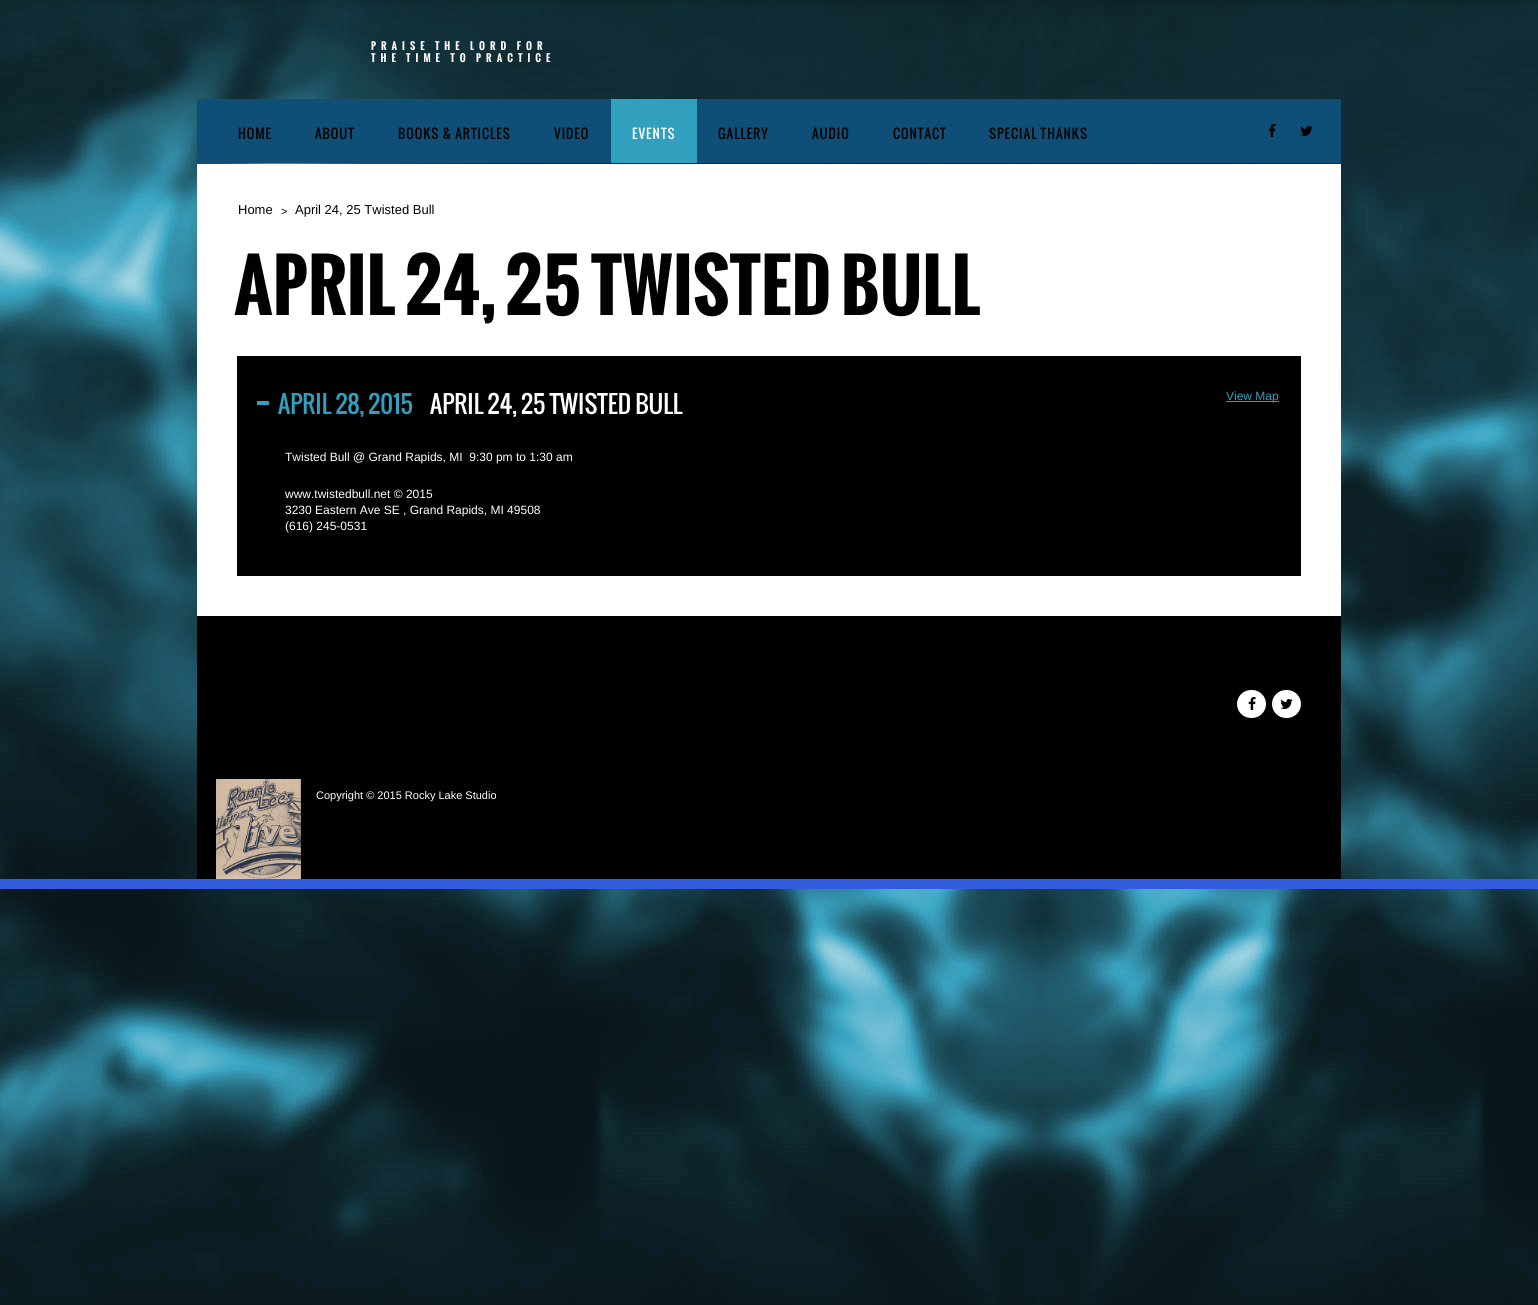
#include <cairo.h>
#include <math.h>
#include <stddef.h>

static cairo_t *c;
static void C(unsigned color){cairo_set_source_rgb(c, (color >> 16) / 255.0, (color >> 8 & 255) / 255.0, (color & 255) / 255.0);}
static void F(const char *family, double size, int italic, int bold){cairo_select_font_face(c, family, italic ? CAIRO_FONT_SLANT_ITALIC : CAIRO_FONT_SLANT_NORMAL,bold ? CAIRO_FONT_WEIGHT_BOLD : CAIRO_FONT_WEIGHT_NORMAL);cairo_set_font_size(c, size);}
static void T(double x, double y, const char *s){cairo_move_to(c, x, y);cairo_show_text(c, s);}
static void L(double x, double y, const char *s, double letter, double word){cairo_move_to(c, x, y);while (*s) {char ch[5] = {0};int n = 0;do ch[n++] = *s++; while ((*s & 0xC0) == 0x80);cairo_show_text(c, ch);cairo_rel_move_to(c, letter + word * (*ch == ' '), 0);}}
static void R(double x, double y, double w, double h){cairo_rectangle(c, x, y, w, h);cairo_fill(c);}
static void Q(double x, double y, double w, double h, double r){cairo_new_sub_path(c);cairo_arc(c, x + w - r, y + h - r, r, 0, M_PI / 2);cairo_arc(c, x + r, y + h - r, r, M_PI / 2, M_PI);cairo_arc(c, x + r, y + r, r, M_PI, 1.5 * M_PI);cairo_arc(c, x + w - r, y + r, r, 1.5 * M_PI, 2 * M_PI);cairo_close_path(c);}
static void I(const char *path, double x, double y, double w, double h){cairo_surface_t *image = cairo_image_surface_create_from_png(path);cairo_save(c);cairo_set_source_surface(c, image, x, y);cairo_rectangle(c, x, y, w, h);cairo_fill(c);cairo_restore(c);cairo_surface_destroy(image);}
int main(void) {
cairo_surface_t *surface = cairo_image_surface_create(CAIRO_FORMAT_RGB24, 1538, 1305);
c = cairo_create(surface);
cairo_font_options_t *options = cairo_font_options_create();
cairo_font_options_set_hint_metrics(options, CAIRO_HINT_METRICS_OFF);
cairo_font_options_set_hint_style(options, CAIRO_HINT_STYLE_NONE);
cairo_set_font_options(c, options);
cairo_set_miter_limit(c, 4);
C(0xffffff);
cairo_paint(c);
I("1.png",0,0,1538,1305);
C(0x335ddd);
R(0,879,1538,10);
F("Oswald",10,0,1);
C(0xffffff);
L(371,50,"PRAISE THE LORD FOR",5,-1);
L(371,62,"THE TIME TO PRACTICE",5,-1);
C(0x0f4e77);
R(197,99,1144,64);
F("Oswald",13,0,0);
C(0x010101);
L(238,139,"HOME",1,0);
L(315,139,"ABOUT",1,0);
L(398,139,"BOOKS & ARTICLES",1,0);
L(554,139,"VIDEO",1,0);
C(0x319fbe);
R(611,99,86,64);
C(0xffffff);
L(632,139,"EVENTS",1,0);
C(0x010101);
L(718,139,"GALLERY",1,0);
L(812,139,"AUDIO",1,0);
L(893,139,"CONTACT",1,0);
L(989,139,"SPECIAL THANKS",1,0);
I("2.png",1268,124,8,13);
I("3.png",1300,126,13,10);
C(0xffffff);
R(197,164,1144,452);
F("Liberation Sans",13,0,0);
C(0x010101);
T(238,214,"Home");
F("Liberation Sans",11,0,0);
T(281,215,">");
F("Liberation Sans",13,0,0);
T(295,214,"April 24, 25 Twisted Bull");
F("Oswald",70,0,1);
T(234,315,"APRIL 24, 25 TWISTED BULL");
C(0x000000);
R(237,356,1064,220);
C(0x319fbe);
R(257,401,12,4);
F("Oswald",24,0,0);
T(278,414,"APRIL 28, 2015");
C(0xffffff);
T(430,414,"APRIL 24, 25 TWISTED BULL");
C(0x319fbe);
R(1226,401,53,1);
F("Liberation Sans",12,0,0);
T(1226,400,"View Map");
C(0xffffff);
T(285,461,"Twisted Bull @ Grand Rapids, MI  9:30 pm to 1:30 am");
T(285,498,"www.twistedbull.net © 2015");
T(285,514,"3230 Eastern Ave SE , Grand Rapids, MI 49508");
T(285,530,"(616) 245-0531");
C(0x000000);
R(197,616,1144,263);
C(0xffffff);
Q(1237,690,29,28,14);
cairo_fill(c);
I("4.png",1248,697,8,13);
Q(1272,690,29,28,14);
cairo_fill(c);
I("5.png",1280,699,13,10);
I("6.png",216,779,85,100);
F("Liberation Sans",11,0,0);
T(316,799,"Copyright © 2015 Rocky Lake Studio");
cairo_surface_write_to_png(surface, "o.png");
cairo_font_options_destroy(options);
cairo_destroy(c);
cairo_surface_destroy(surface);
return 0;
}
